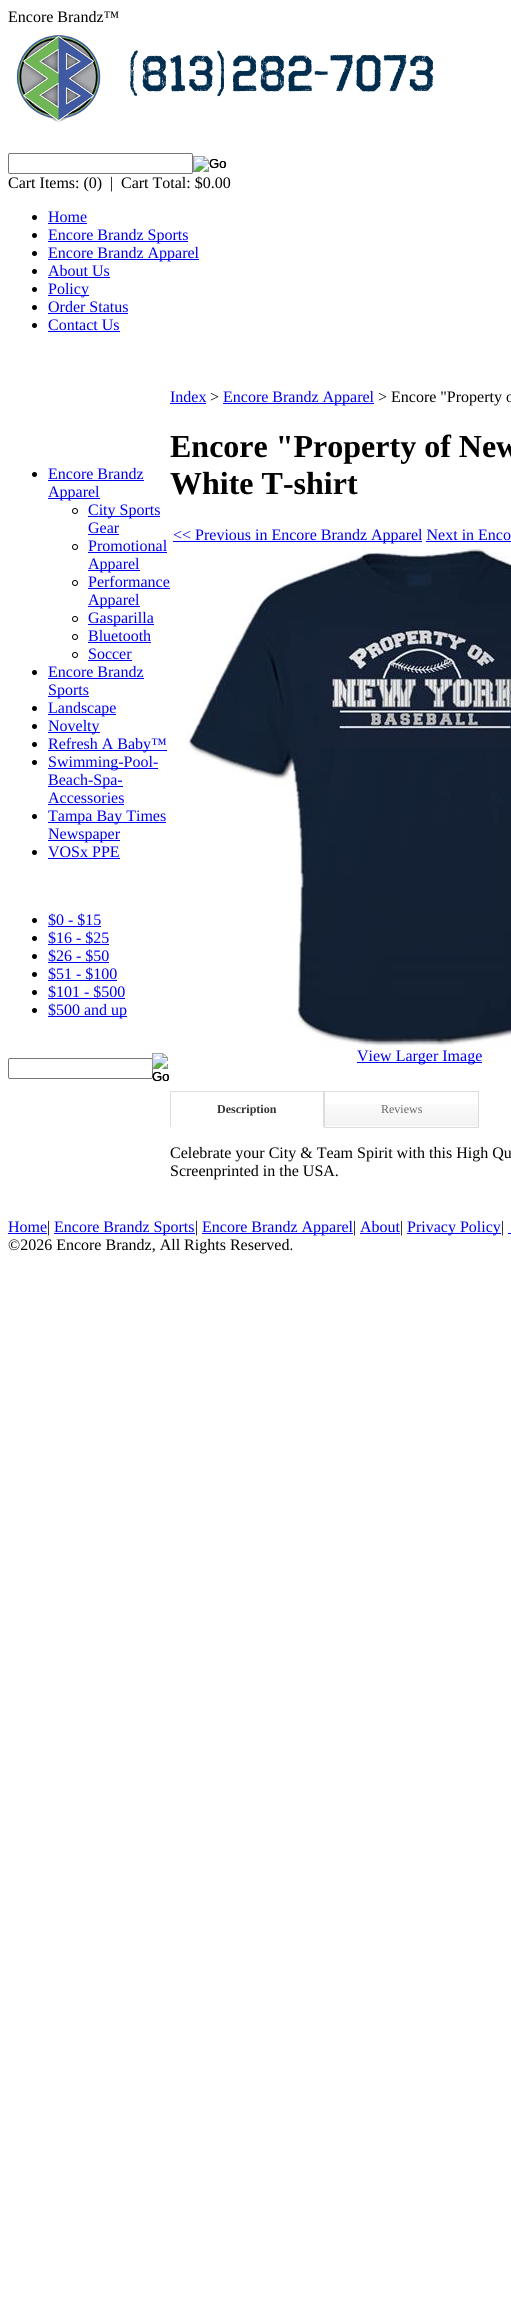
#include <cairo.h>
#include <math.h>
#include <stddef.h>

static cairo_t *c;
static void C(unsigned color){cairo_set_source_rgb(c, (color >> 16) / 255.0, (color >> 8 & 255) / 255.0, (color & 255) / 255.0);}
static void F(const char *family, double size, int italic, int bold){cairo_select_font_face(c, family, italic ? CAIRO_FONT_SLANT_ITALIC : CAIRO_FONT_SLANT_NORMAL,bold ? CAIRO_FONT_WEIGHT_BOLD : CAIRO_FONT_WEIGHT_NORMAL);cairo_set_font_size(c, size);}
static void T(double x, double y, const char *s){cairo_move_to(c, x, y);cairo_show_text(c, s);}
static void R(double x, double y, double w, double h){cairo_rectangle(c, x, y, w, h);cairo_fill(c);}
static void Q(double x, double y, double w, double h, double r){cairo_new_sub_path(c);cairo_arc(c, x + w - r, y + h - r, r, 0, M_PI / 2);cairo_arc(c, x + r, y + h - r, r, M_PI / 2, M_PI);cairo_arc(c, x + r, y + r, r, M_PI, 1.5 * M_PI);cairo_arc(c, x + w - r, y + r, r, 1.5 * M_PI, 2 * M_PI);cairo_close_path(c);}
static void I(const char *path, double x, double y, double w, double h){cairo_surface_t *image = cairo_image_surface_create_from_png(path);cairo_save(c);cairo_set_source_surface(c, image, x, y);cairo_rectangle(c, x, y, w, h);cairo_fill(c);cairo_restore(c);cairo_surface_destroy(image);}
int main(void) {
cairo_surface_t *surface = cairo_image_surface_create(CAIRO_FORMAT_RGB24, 511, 2303);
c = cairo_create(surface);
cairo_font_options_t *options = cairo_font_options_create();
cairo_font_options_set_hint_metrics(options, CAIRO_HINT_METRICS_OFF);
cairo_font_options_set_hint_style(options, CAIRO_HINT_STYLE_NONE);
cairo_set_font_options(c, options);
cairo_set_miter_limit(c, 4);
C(0xffffff);
cairo_paint(c);
F("Liberation Serif",16,0,0);
C(0x000000);
T(8,22,"Encore Brandz™");
I("1.png",16,35,85,87);
I("2.png",130,50,303,47);
Q(8.5,153.5,184,20,1.5);
C(0x767676);
cairo_set_line_width(c,1);
cairo_stroke(c);
I("3.png",193,156,34,16);
F("Liberation Sans",13,0,0);
C(0x000000);
T(209,168,"Go");
F("Liberation Serif",16,0,0);
T(8,188,"Cart Items: (0)");
T(110,188,"|");
T(121,188,"Cart Total: $0.00");
cairo_new_path(c);
cairo_arc(c,34.5,217.5,2.5,0,2 * M_PI);
cairo_fill(c);
C(0x0000ee);
T(48,222,"Home");
R(48,223,39,1);
C(0x000000);
cairo_new_path(c);
cairo_arc(c,34.5,235.5,2.5,0,2 * M_PI);
cairo_fill(c);
C(0x0000ee);
R(48,241,140,1);
T(48,240,"Encore Brandz Sports");
C(0x000000);
cairo_new_path(c);
cairo_arc(c,34.5,253.5,2.5,0,2 * M_PI);
cairo_fill(c);
C(0x0000ee);
R(48,259,151,1);
T(48,258,"Encore Brandz Apparel");
C(0x000000);
cairo_new_path(c);
cairo_arc(c,34.5,271.5,2.5,0,2 * M_PI);
cairo_fill(c);
C(0x0000ee);
T(48,276,"About Us");
R(48,277,62,1);
C(0x000000);
cairo_new_path(c);
cairo_arc(c,34.5,289.5,2.5,0,2 * M_PI);
cairo_fill(c);
C(0x0000ee);
R(48,295,41,1);
T(48,294,"Policy");
C(0x000000);
cairo_new_path(c);
cairo_arc(c,34.5,307.5,2.5,0,2 * M_PI);
cairo_fill(c);
C(0x0000ee);
T(48,312,"Order Status");
R(48,313,80,1);
C(0x000000);
cairo_new_path(c);
cairo_arc(c,34.5,325.5,2.5,0,2 * M_PI);
cairo_fill(c);
C(0x0000ee);
T(48,330,"Contact Us");
R(48,331,72,1);
C(0x000000);
cairo_new_path(c);
cairo_arc(c,34.5,474.5,2.5,0,2 * M_PI);
cairo_fill(c);
C(0x0000ee);
T(48,479,"Encore Brandz");
R(48,480,96,1);
R(48,498,52,1);
T(48,497,"Apparel");
cairo_new_path(c);
cairo_arc(c,75,511,2.5,0,2 * M_PI);
C(0x000000);
cairo_stroke(c);
C(0x0000ee);
R(88,516,72,1);
T(88,515,"City Sports");
T(88,533,"Gear");
R(88,534,31,1);
cairo_new_path(c);
cairo_arc(c,75,547,2.5,0,2 * M_PI);
C(0x000000);
cairo_stroke(c);
C(0x0000ee);
T(88,551,"Promotional");
R(88,552,79,1);
R(88,570,52,1);
T(88,569,"Apparel");
cairo_new_path(c);
cairo_arc(c,75,583,2.5,0,2 * M_PI);
C(0x000000);
cairo_stroke(c);
C(0x0000ee);
T(88,587,"Performance");
R(88,588,82,1);
R(88,606,52,1);
T(88,605,"Apparel");
cairo_new_path(c);
cairo_arc(c,75,619,2.5,0,2 * M_PI);
C(0x000000);
cairo_stroke(c);
C(0x0000ee);
R(88,624,66,1);
T(88,623,"Gasparilla");
cairo_new_path(c);
cairo_arc(c,75,637,2.5,0,2 * M_PI);
C(0x000000);
cairo_stroke(c);
C(0x0000ee);
T(88,641,"Bluetooth");
R(88,642,63,1);
cairo_new_path(c);
cairo_arc(c,75,655,2.5,0,2 * M_PI);
C(0x000000);
cairo_stroke(c);
C(0x0000ee);
T(88,659,"Soccer");
R(88,660,44,1);
C(0x000000);
cairo_new_path(c);
cairo_arc(c,34.5,672.5,2.5,0,2 * M_PI);
cairo_fill(c);
C(0x0000ee);
T(48,677,"Encore Brandz");
R(48,678,96,1);
R(48,696,41,1);
T(48,695,"Sports");
C(0x000000);
cairo_new_path(c);
cairo_arc(c,34.5,708.5,2.5,0,2 * M_PI);
cairo_fill(c);
C(0x0000ee);
R(48,714,68,1);
T(48,713,"Landscape");
C(0x000000);
cairo_new_path(c);
cairo_arc(c,34.5,726.5,2.5,0,2 * M_PI);
cairo_fill(c);
C(0x0000ee);
R(48,732,52,1);
T(48,731,"Novelty");
C(0x000000);
cairo_new_path(c);
cairo_arc(c,34.5,744.5,2.5,0,2 * M_PI);
cairo_fill(c);
C(0x0000ee);
R(48,750,119,1);
T(48,749,"Refresh A Baby™");
C(0x000000);
cairo_new_path(c);
cairo_arc(c,34.5,762.5,2.5,0,2 * M_PI);
cairo_fill(c);
C(0x0000ee);
R(48,768,110,1);
T(48,767,"Swimming-Pool-");
R(48,786,75,1);
T(48,785,"Beach-Spa-");
T(48,803,"Accessories");
R(48,804,76,1);
C(0x000000);
cairo_new_path(c);
cairo_arc(c,34.5,816.5,2.5,0,2 * M_PI);
cairo_fill(c);
C(0x0000ee);
R(48,822,118,1);
T(48,821,"Tampa Bay Times");
R(48,840,72,1);
T(48,839,"Newspaper");
C(0x000000);
cairo_new_path(c);
cairo_arc(c,34.5,852.5,2.5,0,2 * M_PI);
cairo_fill(c);
C(0x0000ee);
T(48,857,"VOSx PPE");
R(48,858,72,1);
C(0x000000);
cairo_new_path(c);
cairo_arc(c,34.5,920.5,2.5,0,2 * M_PI);
cairo_fill(c);
C(0x0000ee);
R(48,926,53,1);
T(48,925,"$0 - $15");
C(0x000000);
cairo_new_path(c);
cairo_arc(c,34.5,938.5,2.5,0,2 * M_PI);
cairo_fill(c);
C(0x0000ee);
R(48,944,61,1);
T(48,943,"$16 - $25");
C(0x000000);
cairo_new_path(c);
cairo_arc(c,34.5,956.5,2.5,0,2 * M_PI);
cairo_fill(c);
C(0x0000ee);
R(48,962,61,1);
T(48,961,"$26 - $50");
C(0x000000);
cairo_new_path(c);
cairo_arc(c,34.5,974.5,2.5,0,2 * M_PI);
cairo_fill(c);
C(0x0000ee);
R(48,980,69,1);
T(48,979,"$51 - $100");
C(0x000000);
cairo_new_path(c);
cairo_arc(c,34.5,992.5,2.5,0,2 * M_PI);
cairo_fill(c);
C(0x0000ee);
R(48,998,77,1);
T(48,997,"$101 - $500");
C(0x000000);
cairo_new_path(c);
cairo_arc(c,34.5,1010.5,2.5,0,2 * M_PI);
cairo_fill(c);
C(0x0000ee);
R(48,1016,79,1);
T(48,1015,"$500 and up");
Q(8.5,1058.5,144,20,1.5);
C(0x767676);
cairo_stroke(c);
I("4.png",152,1053,18,28);
F("Liberation Sans",13,0,0);
C(0x000000);
T(152,1081,"Go");
F("Liberation Serif",16,0,0);
C(0x0000ee);
T(170,402,"Index");
R(170,403,36,1);
C(0x000000);
T(210,402,">");
C(0x0000ee);
R(223,403,151,1);
T(223,402,"Encore Brandz Apparel");
C(0x000000);
T(378,402,"> Encore \"Property o");
F("Liberation Serif",32,0,1);
T(170,457,"Encore \"Property of New");
T(170,494,"White T-shirt");
C(0x0000ee);
R(173,541,249,1);
F("Liberation Serif",16,0,0);
T(173,540,"<< Previous in Encore Brandz Apparel Next in Enco");
R(426,541,85,1);
I("5.png",186,547,325,500);
R(357,1062,125,1);
T(357,1061,"View Larger Image");
C(0xdddddd);
R(170,1091,154,1);
R(323,1091,1,36);
R(170,1091,1,36);
F("Liberation Serif",12,0,1);
C(0x333333);
T(217,1113,"Description");
I("6.png",325,1104,153,22);
cairo_rectangle(c,324.5,1091.5,154,36);
C(0xdddddd);
cairo_stroke(c);
F("Liberation Serif",12,0,0);
C(0x666666);
T(381,1113,"Reviews");
F("Liberation Serif",16,0,0);
C(0x000000);
T(170,1158,"Celebrate your City & Team Spirit with this High Qu");
T(170,1176,"Screenprinted in the USA.");
C(0x0000ee);
T(8,1232,"Home");
R(8,1233,39,1);
C(0x000000);
T(47,1232,"|");
C(0x0000ee);
R(54,1233,141,1);
T(54,1232,"Encore Brandz Sports");
C(0x000000);
T(195,1232,"|");
C(0x0000ee);
R(202,1233,151,1);
T(202,1232,"Encore Brandz Apparel");
C(0x000000);
T(353,1232,"|");
C(0x0000ee);
T(360,1232,"About");
R(360,1233,40,1);
C(0x000000);
T(400,1232,"|");
C(0x0000ee);
R(407,1233,94,1);
T(407,1232,"Privacy Policy");
C(0x000000);
T(501,1232,"|");
C(0x0000ee);
R(508,1233,3,1);
C(0x000000);
T(8,1250,"©2026 Encore Brandz, All Rights Reserved.");
cairo_surface_write_to_png(surface, "o.png");
cairo_font_options_destroy(options);
cairo_destroy(c);
cairo_surface_destroy(surface);
return 0;
}
